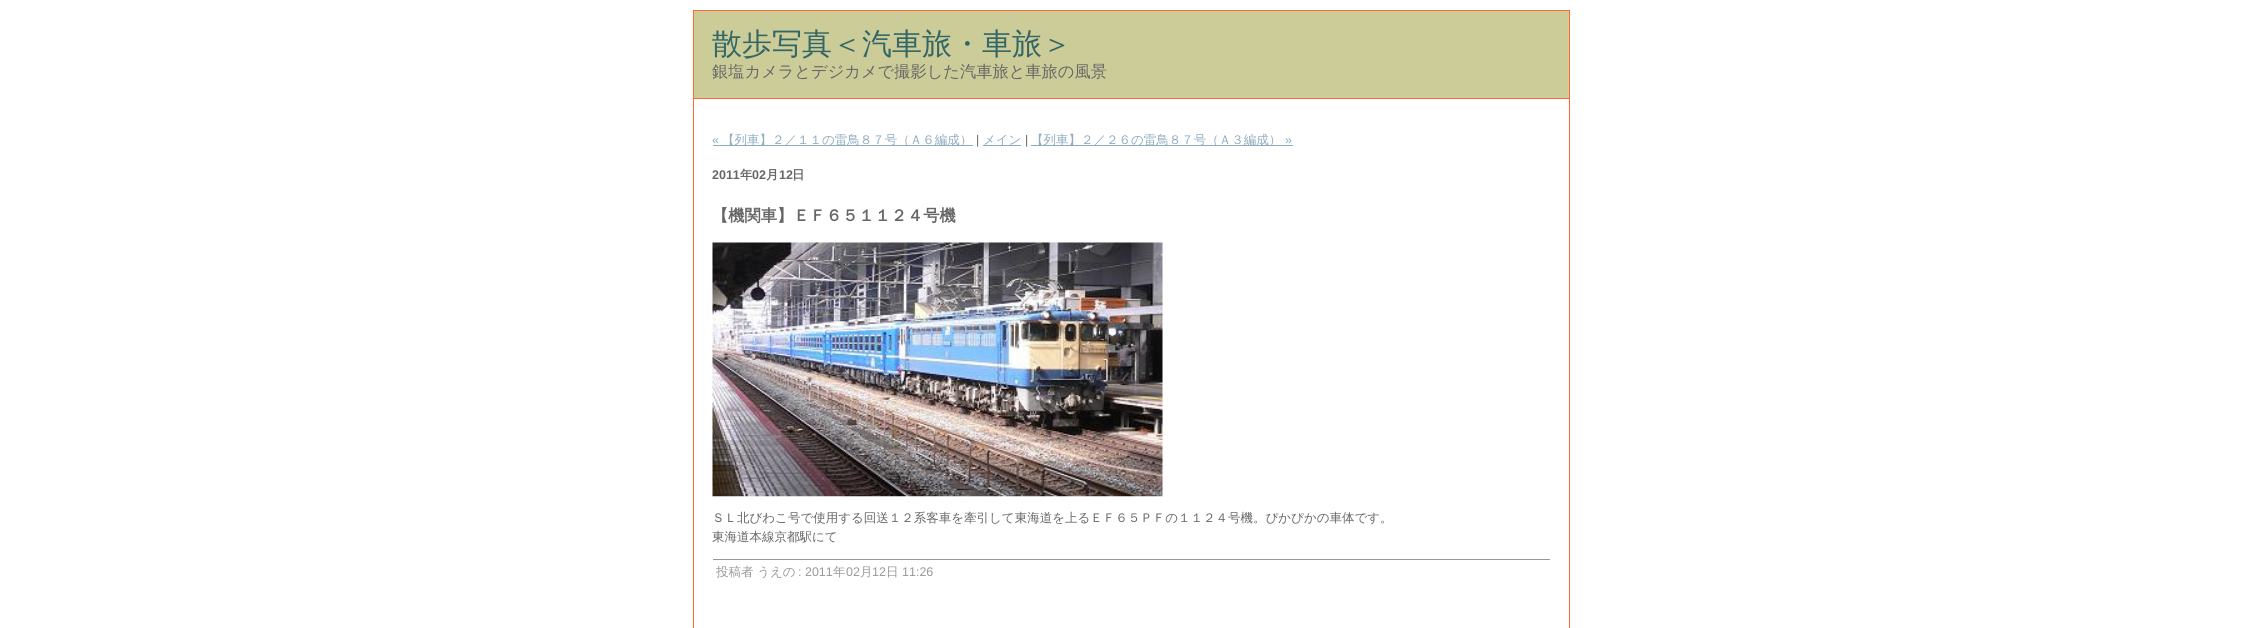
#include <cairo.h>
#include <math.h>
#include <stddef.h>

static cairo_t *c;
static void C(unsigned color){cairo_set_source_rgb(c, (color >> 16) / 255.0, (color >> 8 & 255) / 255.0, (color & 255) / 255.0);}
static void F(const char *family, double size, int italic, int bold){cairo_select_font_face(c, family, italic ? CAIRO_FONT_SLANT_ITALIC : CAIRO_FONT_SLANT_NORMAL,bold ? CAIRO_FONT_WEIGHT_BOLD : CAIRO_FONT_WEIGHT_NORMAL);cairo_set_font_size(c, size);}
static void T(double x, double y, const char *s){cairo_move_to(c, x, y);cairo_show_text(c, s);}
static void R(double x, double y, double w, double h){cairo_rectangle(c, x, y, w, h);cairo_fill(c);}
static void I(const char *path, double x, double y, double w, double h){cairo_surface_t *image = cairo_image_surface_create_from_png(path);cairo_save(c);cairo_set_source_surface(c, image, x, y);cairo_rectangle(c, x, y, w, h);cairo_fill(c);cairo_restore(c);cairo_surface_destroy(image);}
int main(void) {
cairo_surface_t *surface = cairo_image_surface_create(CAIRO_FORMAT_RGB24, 2261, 628);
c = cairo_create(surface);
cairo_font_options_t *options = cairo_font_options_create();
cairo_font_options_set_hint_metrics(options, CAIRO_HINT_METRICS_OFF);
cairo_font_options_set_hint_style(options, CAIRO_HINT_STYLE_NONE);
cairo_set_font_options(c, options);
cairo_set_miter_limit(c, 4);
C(0xffffff);
cairo_paint(c);
cairo_rectangle(c,693.5,10.5,876,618);
C(0xff6633);
cairo_set_line_width(c,1);
cairo_stroke(c);
C(0xcccc99);
R(694,11,875,87);
C(0xff6633);
R(694,98,875,1);
F("WenQuanYi Zen Hei Medium",30,0,0);
C(0x336666);
T(712,54,"散歩写真＜汽車旅・車旅＞");
F("WenQuanYi Zen Hei Medium",16.25,0,0);
C(0x666666);
T(712,77,"銀塩カメラとデジカメで撮影した汽車旅と車旅の風景");
F("Liberation Sans",12.5,0,0);
C(0x8fabbe);
T(712,144,"«");
R(713,145,260,1);
F("WenQuanYi Zen Hei Medium",12.5,0,0);
T(722,144,"【列車】２／１１の雷鳥８７号（Ａ６編成）");
F("Liberation Sans",12.5,0,0);
C(0x666666);
T(976,144,"|");
C(0x8fabbe);
R(983,145,38,1);
F("WenQuanYi Zen Hei Medium",12.5,0,0);
T(983,144,"メイン");
F("Liberation Sans",12.5,0,0);
C(0x666666);
T(1025,144,"|");
C(0x8fabbe);
R(1031,145,262,1);
F("WenQuanYi Zen Hei Medium",12.5,0,0);
T(1031,144,"【列車】２／２６の雷鳥８７号（Ａ３編成）");
F("Liberation Sans",12.5,0,0);
T(1285,144,"»");
F("Liberation Sans",12.5,0,1);
C(0x666666);
T(712,179,"2011");
F("WenQuanYi Zen Hei",12.5,0,1);
T(740,179,"年");
F("Liberation Sans",12.5,0,1);
T(752,179,"02");
F("WenQuanYi Zen Hei",12.5,0,1);
T(766,179,"月");
F("Liberation Sans",12.5,0,1);
T(779,179,"12");
F("WenQuanYi Zen Hei",12.5,0,1);
T(792,179,"日");
F("WenQuanYi Zen Hei",16.25,0,1);
T(712,221,"【機関車】ＥＦ６５１１２４号機");
I("1.png",712,242,451,255);
F("WenQuanYi Zen Hei Medium",12.5,0,0);
T(712,522,"ＳＬ北びわこ号で使用する回送１２系客車を牽引して東海道を上るＥＦ６５ＰＦの１１２４号機。ぴかぴかの車体です。");
T(712,541,"東海道本線京都駅にて");
C(0x999999);
R(713,559,837,1);
T(716,576,"投稿者 うえの");
F("Liberation Sans",12.5,0,0);
T(798,576,": 2011");
F("WenQuanYi Zen Hei Medium",12.5,0,0);
T(833,576,"年");
F("Liberation Sans",12.5,0,0);
T(846,576,"02");
F("WenQuanYi Zen Hei Medium",12.5,0,0);
T(860,576,"月");
F("Liberation Sans",12.5,0,0);
T(872,576,"12");
F("WenQuanYi Zen Hei Medium",12.5,0,0);
T(886,576,"日");
F("Liberation Sans",12.5,0,0);
T(902,576,"11:26");
cairo_surface_write_to_png(surface, "o.png");
cairo_font_options_destroy(options);
cairo_destroy(c);
cairo_surface_destroy(surface);
return 0;
}
